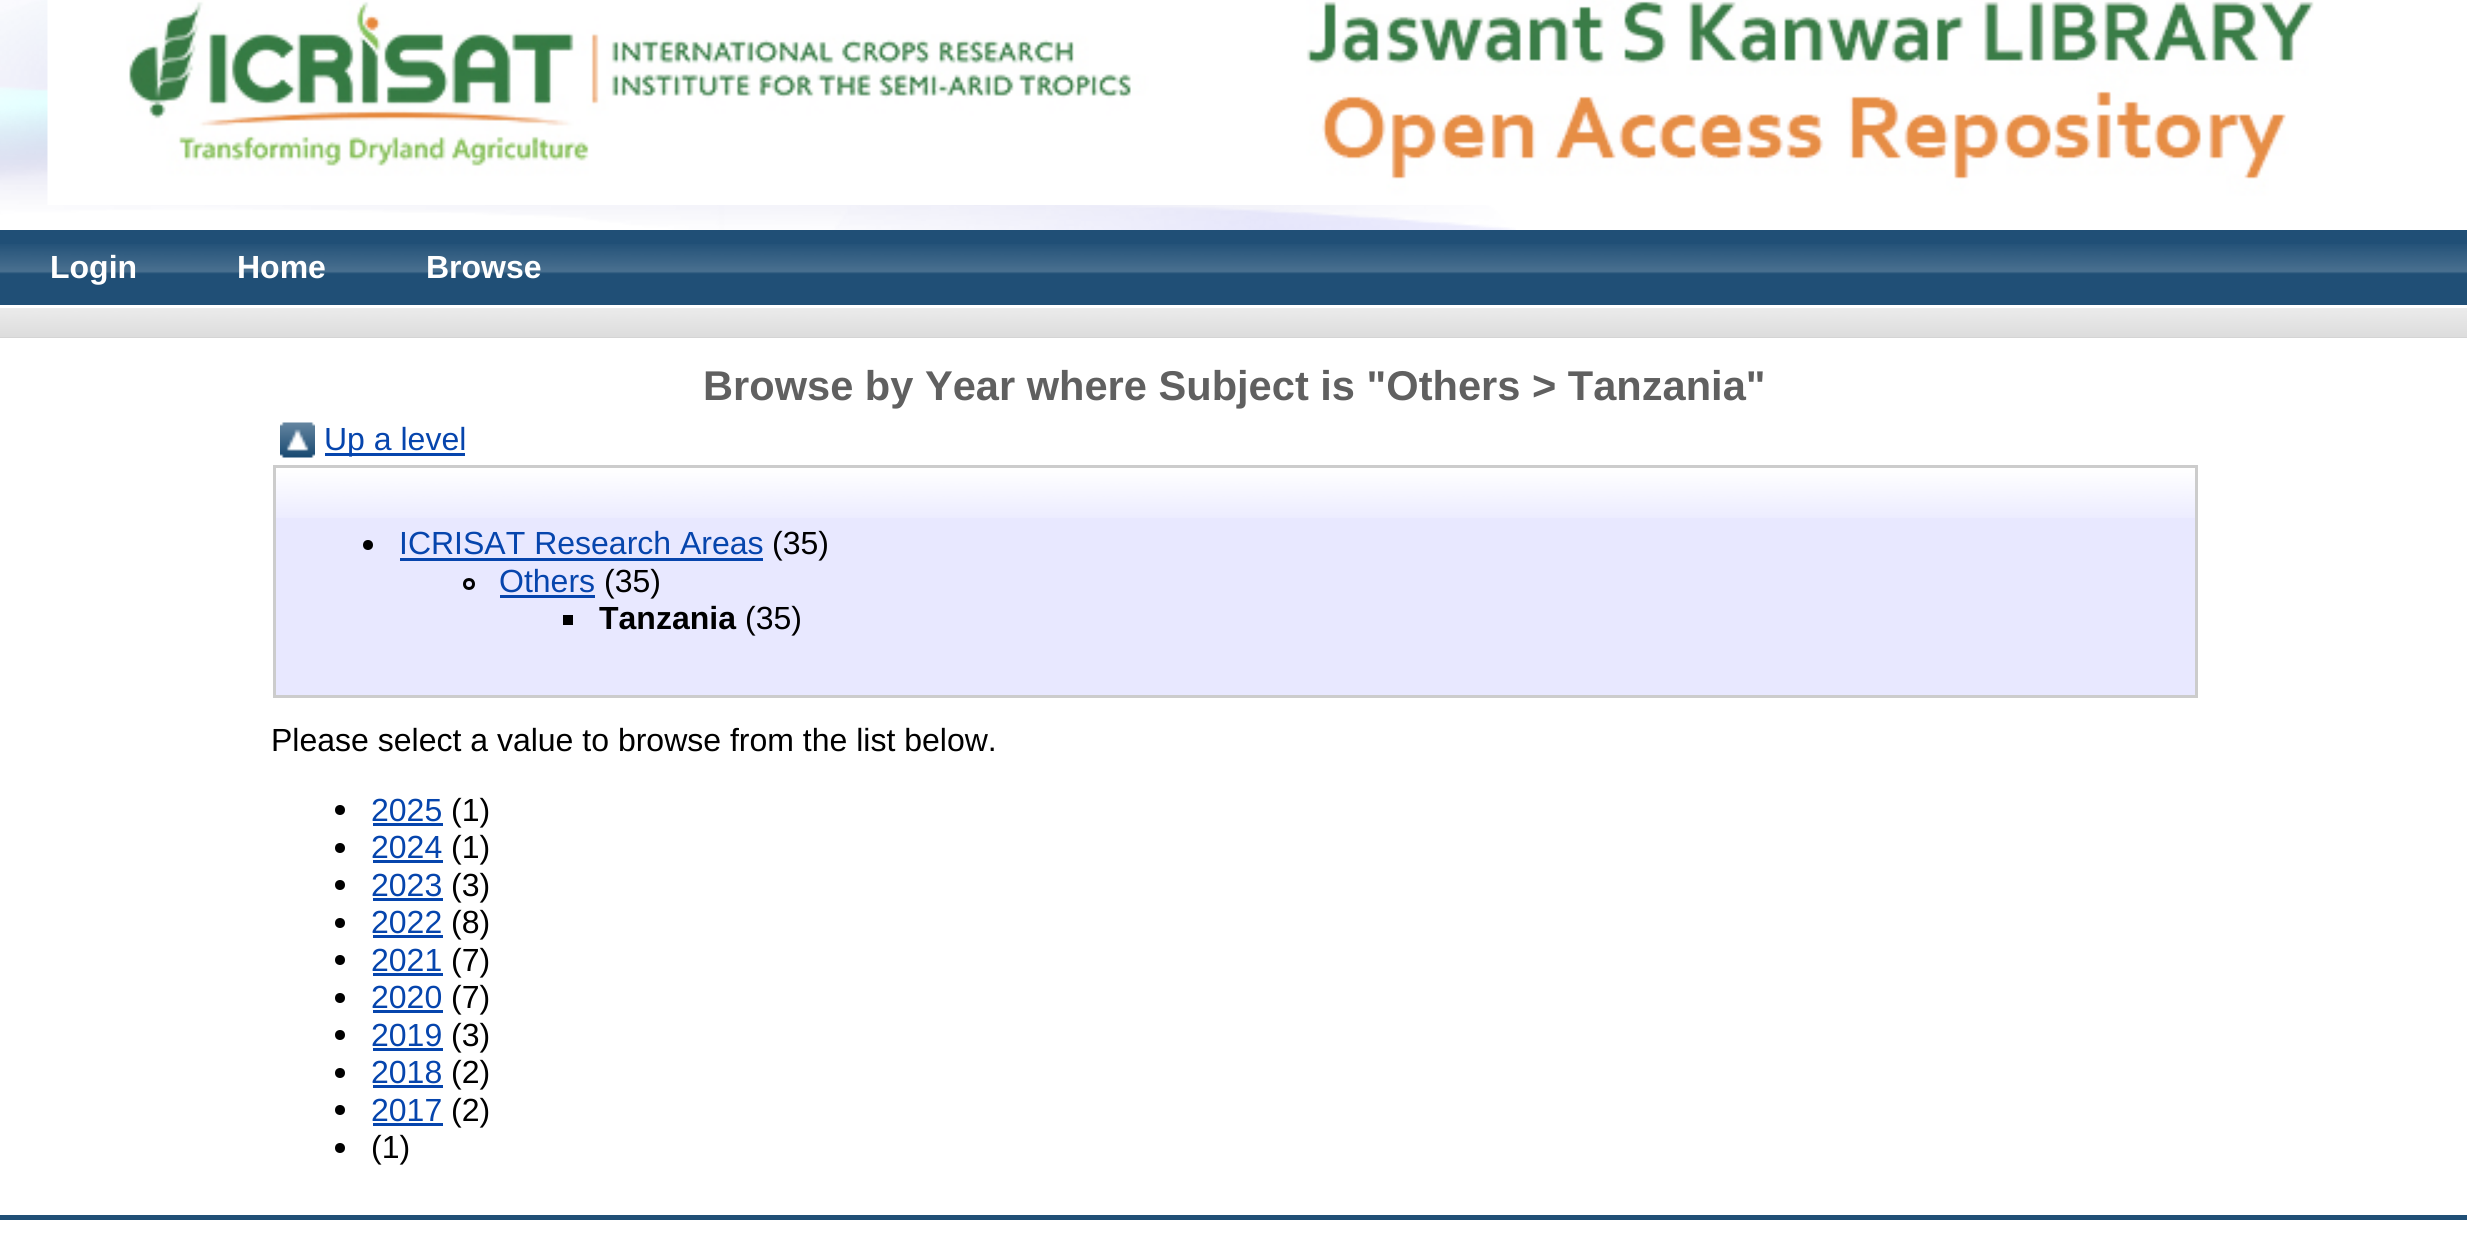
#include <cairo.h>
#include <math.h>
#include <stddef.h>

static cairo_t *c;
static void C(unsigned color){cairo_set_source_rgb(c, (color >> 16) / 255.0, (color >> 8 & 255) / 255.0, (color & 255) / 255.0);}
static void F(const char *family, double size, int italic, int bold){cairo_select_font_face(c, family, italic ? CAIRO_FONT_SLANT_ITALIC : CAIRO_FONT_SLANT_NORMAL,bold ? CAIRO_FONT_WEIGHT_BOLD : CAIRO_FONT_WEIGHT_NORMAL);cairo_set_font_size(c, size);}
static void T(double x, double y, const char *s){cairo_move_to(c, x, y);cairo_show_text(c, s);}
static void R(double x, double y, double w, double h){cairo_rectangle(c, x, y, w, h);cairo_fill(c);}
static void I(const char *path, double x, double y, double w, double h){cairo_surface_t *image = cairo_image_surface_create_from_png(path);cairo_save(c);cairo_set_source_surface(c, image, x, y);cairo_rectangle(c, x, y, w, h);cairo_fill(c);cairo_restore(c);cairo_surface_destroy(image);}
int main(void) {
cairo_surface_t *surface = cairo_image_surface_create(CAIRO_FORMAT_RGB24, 2467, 1250);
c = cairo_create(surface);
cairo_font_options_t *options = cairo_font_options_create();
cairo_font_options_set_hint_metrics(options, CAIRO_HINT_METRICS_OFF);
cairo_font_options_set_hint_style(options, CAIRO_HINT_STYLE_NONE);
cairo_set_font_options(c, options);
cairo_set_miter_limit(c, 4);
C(0xffffff);
cairo_paint(c);
I("1.png",0,0,1516,230);
I("2.png",47,0,2267,205);
C(0x204f76);
R(0,230,2467,75);
I("3.png",0,244,2467,30);
F("Liberation Sans",32,0,1);
C(0xffffff);
T(50,278,"Login");
T(237,278,"Home");
T(426,278,"Browse");
C(0xcccccc);
R(0,308,2467,30);
I("4.png",0,308,2467,30);
F("Liberation Sans",41.6,0,1);
C(0x606060);
T(703,400,"Browse by Year where Subject is \"Others > Tanzania\"");
I("5.png",280,422,35,36);
C(0x0645ad);
R(325,453,140,3);
F("Liberation Sans",32,0,0);
T(324,450,"Up a level");
C(0xe8e8ff);
R(276,469,1919,226);
I("6.png",276,468,1919,50);
cairo_rectangle(c,274.5,466.5,1922,230);
C(0xcccccc);
cairo_set_line_width(c,3);
cairo_stroke(c);
C(0x000000);
cairo_arc(c,368,545,5,0,2 * M_PI);
cairo_fill(c);
C(0x0645ad);
T(399,554,"ICRISAT Research Areas");
R(400,558,363,3);
C(0x000000);
T(772,554,"(35)");
cairo_new_path(c);
cairo_arc(c,469,584,4.5,0,2 * M_PI);
cairo_stroke(c);
C(0x0645ad);
T(499,592,"Others");
R(500,595,95,3);
C(0x000000);
T(604,592,"(35)");
R(563,615,10,10);
F("Liberation Sans",32,0,1);
T(599,629,"Tanzania");
F("Liberation Sans",32,0,0);
T(745,629,"(35)");
T(271,751,"Please select a value to browse from the list below.");
cairo_new_path(c);
cairo_arc(c,340,810,5,0,2 * M_PI);
cairo_fill(c);
C(0x0645ad);
T(371,821,"2025");
R(373,823,70,3);
C(0x000000);
T(451,821,"(1)");
cairo_new_path(c);
cairo_arc(c,340,848,5,0,2 * M_PI);
cairo_fill(c);
C(0x0645ad);
T(371,858,"2024");
R(373,860,70,3);
C(0x000000);
T(451,858,"(1)");
cairo_new_path(c);
cairo_arc(c,340,885,5,0,2 * M_PI);
cairo_fill(c);
C(0x0645ad);
T(371,896,"2023");
R(373,898,70,3);
C(0x000000);
T(451,896,"(3)");
cairo_new_path(c);
cairo_arc(c,340,923,5,0,2 * M_PI);
cairo_fill(c);
C(0x0645ad);
T(371,933,"2022");
R(373,935,70,3);
C(0x000000);
T(451,933,"(8)");
cairo_new_path(c);
cairo_arc(c,340,960,5,0,2 * M_PI);
cairo_fill(c);
C(0x0645ad);
T(371,971,"2021");
R(373,973,70,3);
C(0x000000);
T(451,971,"(7)");
cairo_new_path(c);
cairo_arc(c,340,998,5,0,2 * M_PI);
cairo_fill(c);
C(0x0645ad);
T(371,1008,"2020");
R(373,1010,70,3);
C(0x000000);
T(451,1008,"(7)");
cairo_new_path(c);
cairo_arc(c,340,1035,5,0,2 * M_PI);
cairo_fill(c);
C(0x0645ad);
T(371,1046,"2019");
R(373,1048,70,3);
C(0x000000);
T(451,1046,"(3)");
cairo_new_path(c);
cairo_arc(c,340,1073,5,0,2 * M_PI);
cairo_fill(c);
C(0x0645ad);
T(371,1083,"2018");
R(373,1085,70,3);
C(0x000000);
T(451,1083,"(2)");
cairo_new_path(c);
cairo_arc(c,340,1110,5,0,2 * M_PI);
cairo_fill(c);
C(0x0645ad);
T(371,1121,"2017");
R(373,1123,70,3);
C(0x000000);
T(451,1121,"(2)");
cairo_new_path(c);
cairo_arc(c,340,1148,5,0,2 * M_PI);
cairo_fill(c);
T(371,1158,"(1)");
C(0x204f76);
R(0,1215,2467,5);
cairo_surface_write_to_png(surface, "o.png");
cairo_font_options_destroy(options);
cairo_destroy(c);
cairo_surface_destroy(surface);
return 0;
}
